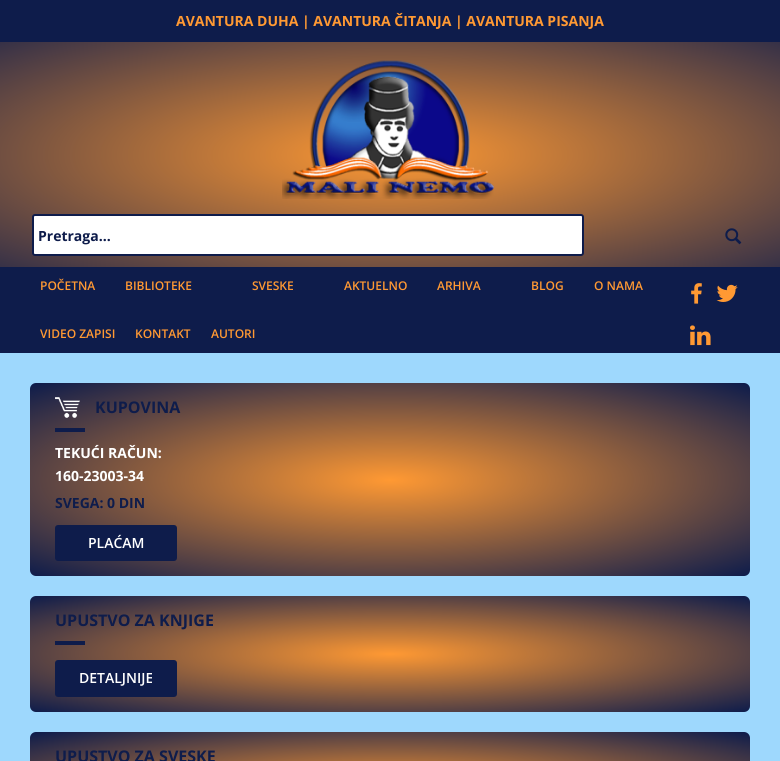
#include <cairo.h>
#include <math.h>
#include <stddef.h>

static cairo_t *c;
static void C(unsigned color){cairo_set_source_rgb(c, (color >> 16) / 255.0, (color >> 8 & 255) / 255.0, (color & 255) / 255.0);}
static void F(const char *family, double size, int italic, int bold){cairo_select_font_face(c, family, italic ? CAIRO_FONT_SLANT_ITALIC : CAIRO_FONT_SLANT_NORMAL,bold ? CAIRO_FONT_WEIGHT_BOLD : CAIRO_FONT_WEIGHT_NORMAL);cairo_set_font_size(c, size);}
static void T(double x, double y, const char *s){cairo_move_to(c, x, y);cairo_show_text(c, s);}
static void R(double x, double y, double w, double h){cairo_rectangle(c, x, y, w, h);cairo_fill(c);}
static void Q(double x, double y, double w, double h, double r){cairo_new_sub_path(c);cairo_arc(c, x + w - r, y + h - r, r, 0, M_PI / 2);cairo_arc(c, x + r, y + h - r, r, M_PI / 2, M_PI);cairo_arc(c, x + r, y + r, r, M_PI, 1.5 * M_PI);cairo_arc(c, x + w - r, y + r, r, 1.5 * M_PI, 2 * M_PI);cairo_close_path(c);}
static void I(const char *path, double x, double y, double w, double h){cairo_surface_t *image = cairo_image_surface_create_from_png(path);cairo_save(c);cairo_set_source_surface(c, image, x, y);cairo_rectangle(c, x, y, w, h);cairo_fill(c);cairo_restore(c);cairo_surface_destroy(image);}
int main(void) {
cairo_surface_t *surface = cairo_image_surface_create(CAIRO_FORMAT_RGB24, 780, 761);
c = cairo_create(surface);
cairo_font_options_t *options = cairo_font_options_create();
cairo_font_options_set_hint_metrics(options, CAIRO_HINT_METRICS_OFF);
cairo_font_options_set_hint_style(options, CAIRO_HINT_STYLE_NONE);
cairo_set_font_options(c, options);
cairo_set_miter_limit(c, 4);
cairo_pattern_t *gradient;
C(0x9ed8fd);
cairo_paint(c);
C(0x0e1c4b);
R(0,0,780,42);
F("Open Sans",14,0,1);
C(0xff9933);
T(176,26,"AVANTURA DUHA | AVANTURA ČITANJA | AVANTURA PISANJA");
gradient = cairo_pattern_create_radial(0,0,0,0,0,1);
cairo_pattern_set_matrix(gradient, &(cairo_matrix_t){1.0 / 662, 0, 0, 1.0 / 191, -1.0 * 390 / 662, -1.0 * 155 / 191});
cairo_pattern_add_color_stop_rgba(gradient,0,1,0.6,0.2,1);
cairo_pattern_add_color_stop_rgba(gradient,1,0.055,0.11,0.294,1);
cairo_set_source(c,gradient);
cairo_pattern_destroy(gradient);
R(0,42,780,225);
I("1.png",282,60,212,139);
C(0xffffff);
Q(33,215,550,40,2);
cairo_fill_preserve(c);
C(0x0e1c4b);
cairo_stroke(c);
T(38,241,"Pretraga...");
I("2.png",725,228,17,17);
R(0,267,780,86);
F("Open Sans SemiBold",12,0,0);
C(0xff9933);
T(40,290,"POČETNA");
T(125,290,"BIBLIOTEKE");
T(252,290,"SVESKE");
T(344,290,"AKTUELNO");
T(437,290,"ARHIVA");
T(531,290,"BLOG");
T(594,290,"O NAMA");
T(40,338,"VIDEO ZAPISI");
T(135,338,"KONTAKT");
T(211,338,"AUTORI");
I("3.png",691,283,11,21);
I("4.png",716,284,22,18);
I("5.png",690,325,21,21);
gradient = cairo_pattern_create_radial(0,0,0,0,0,1);
cairo_pattern_set_matrix(gradient, &(cairo_matrix_t){1.0 / 509, 0, 0, 1.0 / 136, -1.0 * 390 / 509, -1.0 * 480 / 136});
cairo_pattern_add_color_stop_rgba(gradient,0,1,0.6,0.2,1);
cairo_pattern_add_color_stop_rgba(gradient,1,0.055,0.11,0.294,1);
cairo_set_source(c,gradient);
cairo_pattern_destroy(gradient);
Q(30,383,720,193,6);
cairo_fill(c);
I("6.png",55,397,25,21);
F("Open Sans",16,0,1);
C(0x0e1c4b);
T(95,413,"KUPOVINA");
R(55,428,30,4);
F("Open Sans",14,0,1);
C(0xffffff);
T(55,458,"TEKUĆI RAČUN:");
T(55,481,"160-23003-34");
C(0x0e1c4b);
T(55,508,"SVEGA: 0 DIN");
Q(55,525,122,36,3);
cairo_fill(c);
F("Open Sans SemiBold",14,0,0);
C(0xffffff);
T(88,548,"PLAĆAM");
gradient = cairo_pattern_create_radial(0,0,0,0,0,1);
cairo_pattern_set_matrix(gradient, &(cairo_matrix_t){1.0 / 509, 0, 0, 1.0 / 82, -1.0 * 390 / 509, -1.0 * 654 / 82});
cairo_pattern_add_color_stop_rgba(gradient,0,1,0.6,0.2,1);
cairo_pattern_add_color_stop_rgba(gradient,1,0.055,0.11,0.294,1);
cairo_set_source(c,gradient);
cairo_pattern_destroy(gradient);
Q(30,596,720,116,6);
cairo_fill(c);
F("Open Sans",16,0,1);
C(0x0e1c4b);
T(55,626,"UPUSTVO ZA KNJIGE");
R(55,641,30,4);
Q(55,660,122,37,3);
cairo_fill(c);
F("Open Sans SemiBold",14,0,0);
C(0xffffff);
T(79,683,"DETALJNIJE");
gradient = cairo_pattern_create_radial(0,0,0,0,0,1);
cairo_pattern_set_matrix(gradient, &(cairo_matrix_t){1.0 / 509, 0, 0, 1.0 / 81, -1.0 * 390 / 509, -1.0 * 790 / 81});
cairo_pattern_add_color_stop_rgba(gradient,0,1,0.6,0.2,1);
cairo_pattern_add_color_stop_rgba(gradient,1,0.055,0.11,0.294,1);
cairo_set_source(c,gradient);
cairo_pattern_destroy(gradient);
Q(30,732,720,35,6);
cairo_fill(c);
F("Open Sans",16,0,1);
C(0x0e1c4b);
T(55,762,"UPUSTVO ZA SVESKE");
cairo_surface_write_to_png(surface, "o.png");
cairo_font_options_destroy(options);
cairo_destroy(c);
cairo_surface_destroy(surface);
return 0;
}
